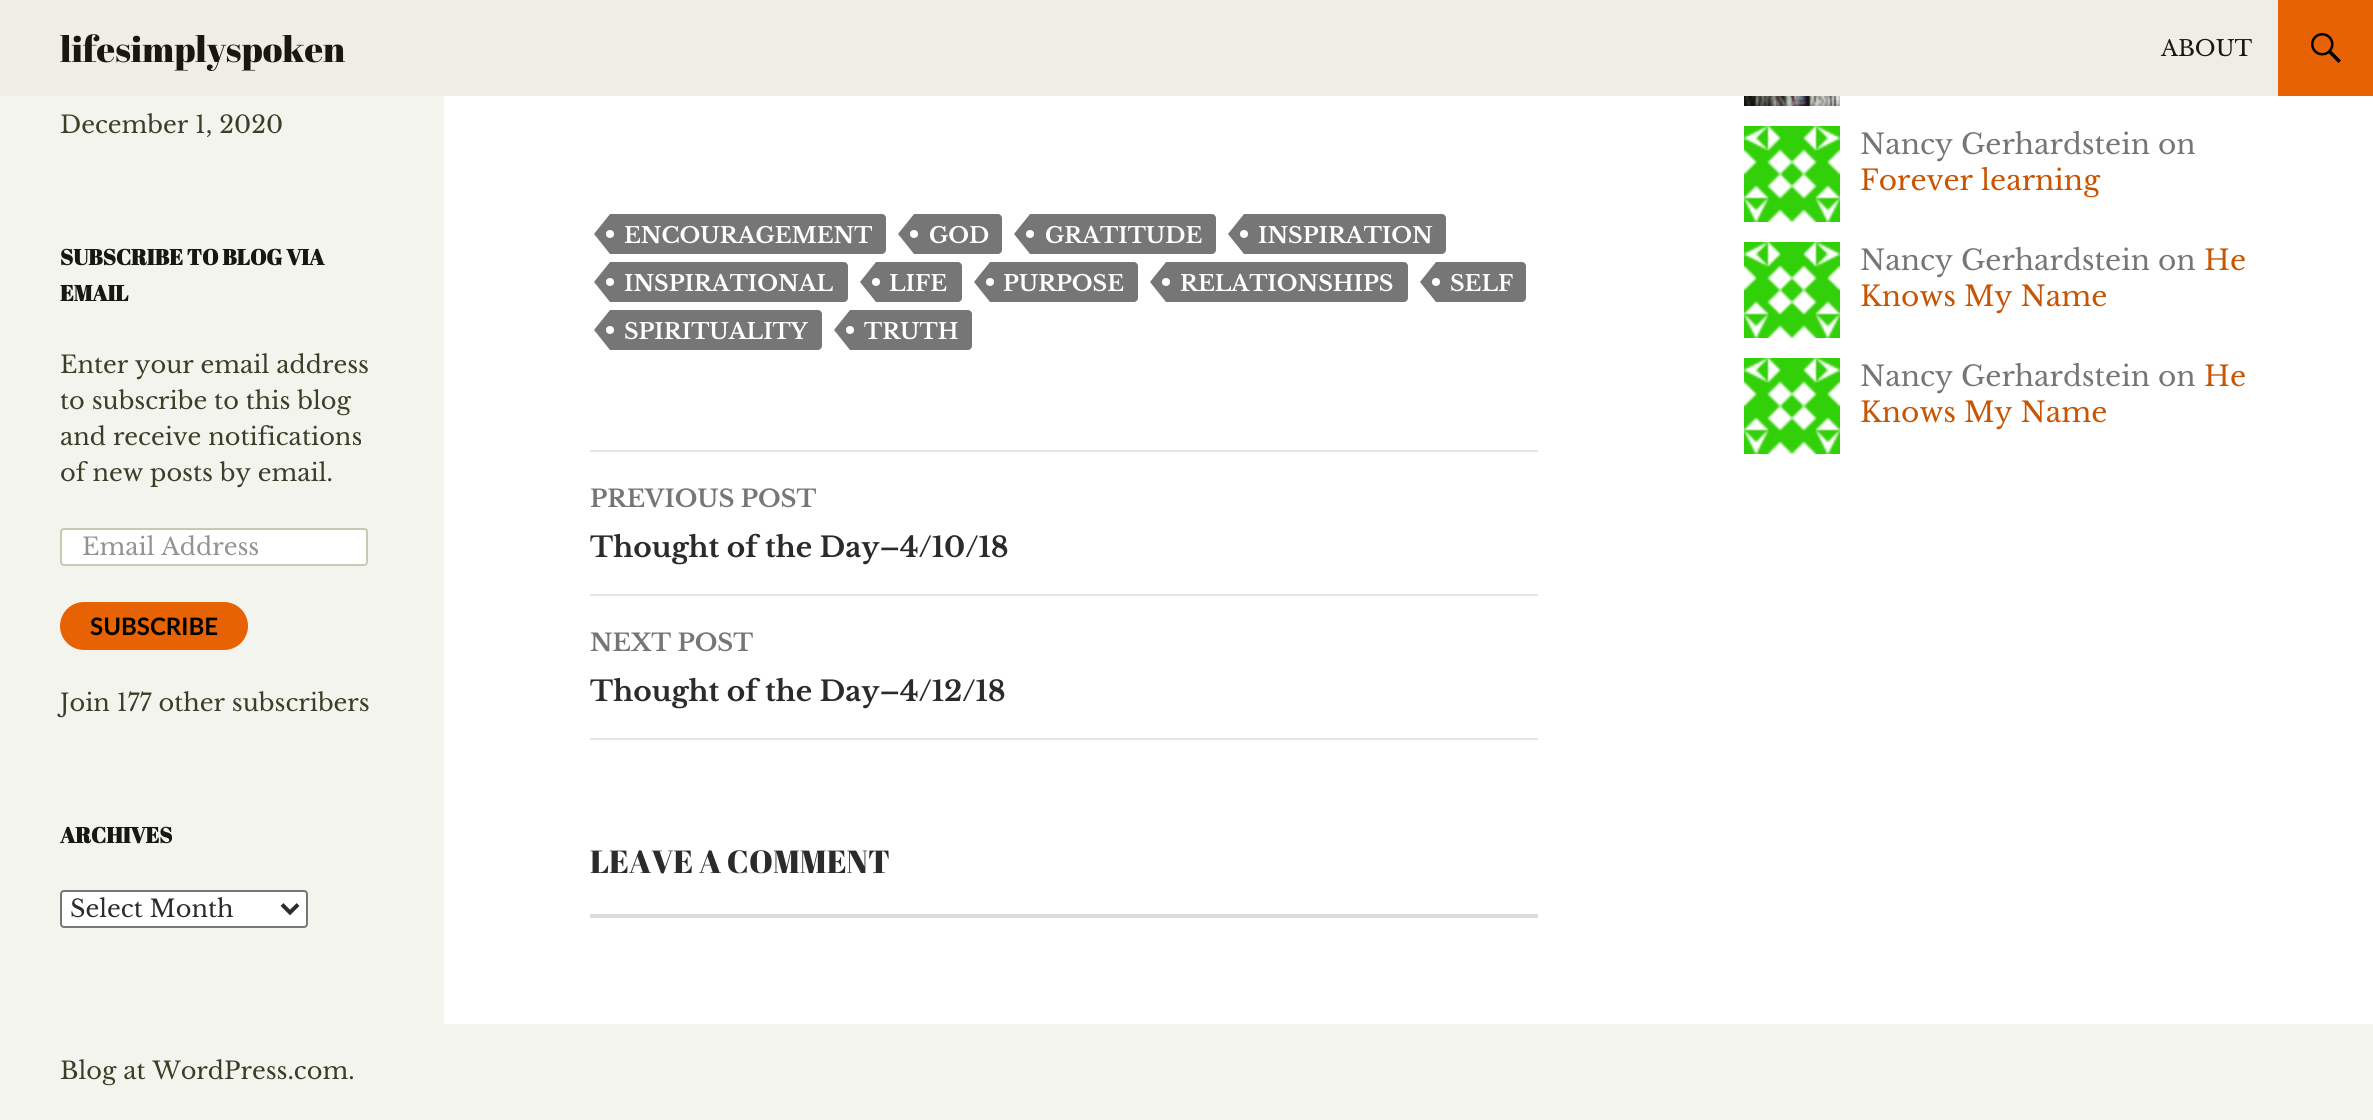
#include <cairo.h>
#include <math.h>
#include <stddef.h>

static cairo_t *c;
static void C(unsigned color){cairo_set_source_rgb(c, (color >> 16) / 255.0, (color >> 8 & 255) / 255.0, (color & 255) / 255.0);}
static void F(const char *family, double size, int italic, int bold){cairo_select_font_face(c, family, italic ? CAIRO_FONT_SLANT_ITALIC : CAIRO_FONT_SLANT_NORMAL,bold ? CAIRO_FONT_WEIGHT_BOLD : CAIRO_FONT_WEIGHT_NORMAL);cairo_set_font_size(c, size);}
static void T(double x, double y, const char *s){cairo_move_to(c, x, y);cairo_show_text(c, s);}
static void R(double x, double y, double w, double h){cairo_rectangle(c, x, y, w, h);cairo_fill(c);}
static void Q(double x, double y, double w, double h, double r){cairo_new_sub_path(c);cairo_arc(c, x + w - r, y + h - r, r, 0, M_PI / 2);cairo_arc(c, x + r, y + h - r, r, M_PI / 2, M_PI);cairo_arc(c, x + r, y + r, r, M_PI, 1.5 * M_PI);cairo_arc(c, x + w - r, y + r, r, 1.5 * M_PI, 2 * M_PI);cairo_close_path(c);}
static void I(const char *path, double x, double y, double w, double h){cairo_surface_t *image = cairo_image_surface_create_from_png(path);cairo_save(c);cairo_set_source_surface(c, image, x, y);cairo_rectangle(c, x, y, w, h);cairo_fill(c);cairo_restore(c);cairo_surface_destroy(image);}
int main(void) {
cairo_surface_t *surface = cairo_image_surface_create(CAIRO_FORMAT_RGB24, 2373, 1120);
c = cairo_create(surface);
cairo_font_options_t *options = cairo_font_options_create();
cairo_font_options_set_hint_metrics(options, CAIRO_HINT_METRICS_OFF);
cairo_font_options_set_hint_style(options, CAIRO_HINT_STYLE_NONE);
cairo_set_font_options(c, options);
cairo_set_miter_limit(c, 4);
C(0xffffff);
cairo_paint(c);
C(0xeeeee6);
R(0,0,2278,96);
F("Abril Fatface",36,0,0);
C(0x181810);
T(60,62,"lifesimplyspoken");
F("Libre Baskerville",22,0,0);
T(2161,56,"ABOUT");
C(0xe76203);
R(2278,0,95,96);
I("1.png",2311,33,30,30);
C(0xf4f4ef);
R(0,96,444,928);
F("Libre Baskerville",24,0,0);
C(0x3d3d28);
T(60,133,"December 1, 2020");
F("Abril Fatface",22,0,1);
C(0x181810);
T(60,265,"SUBSCRIBE TO BLOG VIA");
T(60,301,"EMAIL");
F("Libre Baskerville",24,0,0);
C(0x3d3d28);
T(60,373,"Enter your email address");
T(60,409,"to subscribe to this blog");
T(60,445,"and receive notifications");
T(60,481,"of new posts by email.");
C(0xffffff);
Q(61,529,306,36,3);
cairo_fill_preserve(c);
C(0xc9c9b0);
cairo_stroke(c);
C(0x939393);
T(82,555,"Email Address");
C(0xe76203);
Q(60,602,188,48,24);
cairo_fill(c);
F("Lato",24,0,1);
C(0x000000);
T(90,635,"SUBSCRIBE");
F("Libre Baskerville",24,0,0);
C(0x3d3d28);
T(60,711,"Join 177 other subscribers");
F("Abril Fatface",22,0,1);
C(0x181810);
T(60,843,"ARCHIVES");
C(0xffffff);
Q(61,891,246,36,3);
cairo_fill_preserve(c);
C(0x767676);
cairo_stroke(c);
cairo_new_path(c);
cairo_move_to(c,282,904.5);
cairo_line_to(c,290,912.5);
cairo_line_to(c,298,904.5);
C(0x2b2b2b);
cairo_set_line_width(c,4);
cairo_stroke(c);
F("Libre Baskerville",24,0,0);
T(70,917,"Select Month");
C(0x767676);
cairo_new_path(c);
cairo_move_to(c,610,214);
cairo_line_to(c,882,214);
cairo_curve_to(c,884,214,886,216,886,218);
cairo_line_to(c,886,250);
cairo_curve_to(c,886,252,884,254,882,254);
cairo_line_to(c,610,254);
cairo_close_path(c);
cairo_fill(c);
cairo_new_path(c);
cairo_move_to(c,610,214);
cairo_line_to(c,610,254);
cairo_line_to(c,594,234);
cairo_close_path(c);
cairo_fill(c);
F("Libre Baskerville",22,0,1);
C(0xffffff);
T(624,243,"ENCOURAGEMENT");
cairo_new_path(c);
cairo_arc(c,610,234,4,0,2 * M_PI);
cairo_fill(c);
C(0x767676);
cairo_new_path(c);
cairo_move_to(c,914,214);
cairo_line_to(c,998,214);
cairo_curve_to(c,1000,214,1002,216,1002,218);
cairo_line_to(c,1002,250);
cairo_curve_to(c,1002,252,1000,254,998,254);
cairo_line_to(c,914,254);
cairo_close_path(c);
cairo_fill(c);
cairo_new_path(c);
cairo_move_to(c,914,214);
cairo_line_to(c,914,254);
cairo_line_to(c,898,234);
cairo_close_path(c);
cairo_fill(c);
C(0xffffff);
T(929,243,"GOD");
cairo_new_path(c);
cairo_arc(c,914,234,4,0,2 * M_PI);
cairo_fill(c);
C(0x767676);
cairo_new_path(c);
cairo_move_to(c,1030,214);
cairo_line_to(c,1212,214);
cairo_curve_to(c,1214,214,1216,216,1216,218);
cairo_line_to(c,1216,250);
cairo_curve_to(c,1216,252,1214,254,1212,254);
cairo_line_to(c,1030,254);
cairo_close_path(c);
cairo_fill(c);
cairo_new_path(c);
cairo_move_to(c,1030,214);
cairo_line_to(c,1030,254);
cairo_line_to(c,1014,234);
cairo_close_path(c);
cairo_fill(c);
C(0xffffff);
T(1045,243,"GRATITUDE");
cairo_new_path(c);
cairo_arc(c,1030,234,4,0,2 * M_PI);
cairo_fill(c);
C(0x767676);
cairo_new_path(c);
cairo_move_to(c,1244,214);
cairo_line_to(c,1442,214);
cairo_curve_to(c,1444,214,1446,216,1446,218);
cairo_line_to(c,1446,250);
cairo_curve_to(c,1446,252,1444,254,1442,254);
cairo_line_to(c,1244,254);
cairo_close_path(c);
cairo_fill(c);
cairo_new_path(c);
cairo_move_to(c,1244,214);
cairo_line_to(c,1244,254);
cairo_line_to(c,1228,234);
cairo_close_path(c);
cairo_fill(c);
C(0xffffff);
T(1258,243,"INSPIRATION");
cairo_new_path(c);
cairo_arc(c,1244,234,4,0,2 * M_PI);
cairo_fill(c);
C(0x767676);
cairo_new_path(c);
cairo_move_to(c,610,262);
cairo_line_to(c,844,262);
cairo_curve_to(c,846,262,848,264,848,266);
cairo_line_to(c,848,298);
cairo_curve_to(c,848,300,846,302,844,302);
cairo_line_to(c,610,302);
cairo_close_path(c);
cairo_fill(c);
cairo_new_path(c);
cairo_move_to(c,610,262);
cairo_line_to(c,610,302);
cairo_line_to(c,594,282);
cairo_close_path(c);
cairo_fill(c);
C(0xffffff);
T(624,291,"INSPIRATIONAL");
cairo_new_path(c);
cairo_arc(c,610,282,4,0,2 * M_PI);
cairo_fill(c);
C(0x767676);
cairo_new_path(c);
cairo_move_to(c,876,262);
cairo_line_to(c,958,262);
cairo_curve_to(c,960,262,962,264,962,266);
cairo_line_to(c,962,298);
cairo_curve_to(c,962,300,960,302,958,302);
cairo_line_to(c,876,302);
cairo_close_path(c);
cairo_fill(c);
cairo_new_path(c);
cairo_move_to(c,876,262);
cairo_line_to(c,876,302);
cairo_line_to(c,860,282);
cairo_close_path(c);
cairo_fill(c);
C(0xffffff);
T(889,291,"LIFE");
cairo_new_path(c);
cairo_arc(c,876,282,4,0,2 * M_PI);
cairo_fill(c);
C(0x767676);
cairo_new_path(c);
cairo_move_to(c,990,262);
cairo_line_to(c,1134,262);
cairo_curve_to(c,1136,262,1138,264,1138,266);
cairo_line_to(c,1138,298);
cairo_curve_to(c,1138,300,1136,302,1134,302);
cairo_line_to(c,990,302);
cairo_close_path(c);
cairo_fill(c);
cairo_new_path(c);
cairo_move_to(c,990,262);
cairo_line_to(c,990,302);
cairo_line_to(c,974,282);
cairo_close_path(c);
cairo_fill(c);
C(0xffffff);
T(1003,291,"PURPOSE");
cairo_new_path(c);
cairo_arc(c,990,282,4,0,2 * M_PI);
cairo_fill(c);
C(0x767676);
cairo_new_path(c);
cairo_move_to(c,1166,262);
cairo_line_to(c,1404,262);
cairo_curve_to(c,1406,262,1408,264,1408,266);
cairo_line_to(c,1408,298);
cairo_curve_to(c,1408,300,1406,302,1404,302);
cairo_line_to(c,1166,302);
cairo_close_path(c);
cairo_fill(c);
cairo_new_path(c);
cairo_move_to(c,1166,262);
cairo_line_to(c,1166,302);
cairo_line_to(c,1150,282);
cairo_close_path(c);
cairo_fill(c);
C(0xffffff);
T(1180,291,"RELATIONSHIPS");
cairo_new_path(c);
cairo_arc(c,1166,282,4,0,2 * M_PI);
cairo_fill(c);
C(0x767676);
cairo_new_path(c);
cairo_move_to(c,1436,262);
cairo_line_to(c,1522,262);
cairo_curve_to(c,1524,262,1526,264,1526,266);
cairo_line_to(c,1526,298);
cairo_curve_to(c,1526,300,1524,302,1522,302);
cairo_line_to(c,1436,302);
cairo_close_path(c);
cairo_fill(c);
cairo_new_path(c);
cairo_move_to(c,1436,262);
cairo_line_to(c,1436,302);
cairo_line_to(c,1420,282);
cairo_close_path(c);
cairo_fill(c);
C(0xffffff);
T(1450,291,"SELF");
cairo_new_path(c);
cairo_arc(c,1436,282,4,0,2 * M_PI);
cairo_fill(c);
C(0x767676);
cairo_new_path(c);
cairo_move_to(c,610,310);
cairo_line_to(c,818,310);
cairo_curve_to(c,820,310,822,312,822,314);
cairo_line_to(c,822,346);
cairo_curve_to(c,822,348,820,350,818,350);
cairo_line_to(c,610,350);
cairo_close_path(c);
cairo_fill(c);
cairo_new_path(c);
cairo_move_to(c,610,310);
cairo_line_to(c,610,350);
cairo_line_to(c,594,330);
cairo_close_path(c);
cairo_fill(c);
C(0xffffff);
T(624,339,"SPIRITUALITY");
cairo_new_path(c);
cairo_arc(c,610,330,4,0,2 * M_PI);
cairo_fill(c);
C(0x767676);
cairo_new_path(c);
cairo_move_to(c,850,310);
cairo_line_to(c,968,310);
cairo_curve_to(c,970,310,972,312,972,314);
cairo_line_to(c,972,346);
cairo_curve_to(c,972,348,970,350,968,350);
cairo_line_to(c,850,350);
cairo_close_path(c);
cairo_fill(c);
cairo_new_path(c);
cairo_move_to(c,850,310);
cairo_line_to(c,850,350);
cairo_line_to(c,834,330);
cairo_close_path(c);
cairo_fill(c);
C(0xffffff);
T(864,339,"TRUTH");
cairo_new_path(c);
cairo_arc(c,850,330,4,0,2 * M_PI);
cairo_fill(c);
C(0xe6e6e6);
R(590,450,948,2);
R(590,594,948,2);
F("Libre Baskerville",24,0,1);
C(0x767676);
T(590,507,"PREVIOUS POST");
F("Libre Baskerville",28,0,1);
C(0x2b2b2b);
T(590,557,"Thought of the Day–4/10/18");
C(0xe6e6e6);
R(590,738,948,2);
F("Libre Baskerville",24,0,1);
C(0x767676);
T(590,651,"NEXT POST");
F("Libre Baskerville",28,0,1);
C(0x2b2b2b);
T(590,701,"Thought of the Day–4/12/18");
F("Abril Fatface",32,0,0);
T(590,873,"LEAVE A COMMENT");
C(0xdcdcde);
R(590,914,948,4);
I("2.png",1744,96,96,10);
I("3.png",1744,126,96,96);
F("Libre Baskerville",28,0,0);
C(0x767676);
T(1860,154,"Nancy Gerhardstein on");
C(0xc85503);
T(1860,190,"Forever learning");
I("3.png",1744,242,96,96);
C(0x767676);
T(1860,270,"Nancy Gerhardstein on");
C(0xc85503);
T(2204,270,"He");
T(1860,306,"Knows My Name");
I("3.png",1744,358,96,96);
C(0x767676);
T(1860,386,"Nancy Gerhardstein on");
C(0xc85503);
T(2204,386,"He");
T(1860,422,"Knows My Name");
C(0xf4f4ef);
R(0,1024,2373,96);
F("Libre Baskerville",24,0,0);
C(0x3d3d28);
T(60,1079,"Blog at WordPress.com.");
cairo_surface_write_to_png(surface, "o.png");
cairo_font_options_destroy(options);
cairo_destroy(c);
cairo_surface_destroy(surface);
return 0;
}
